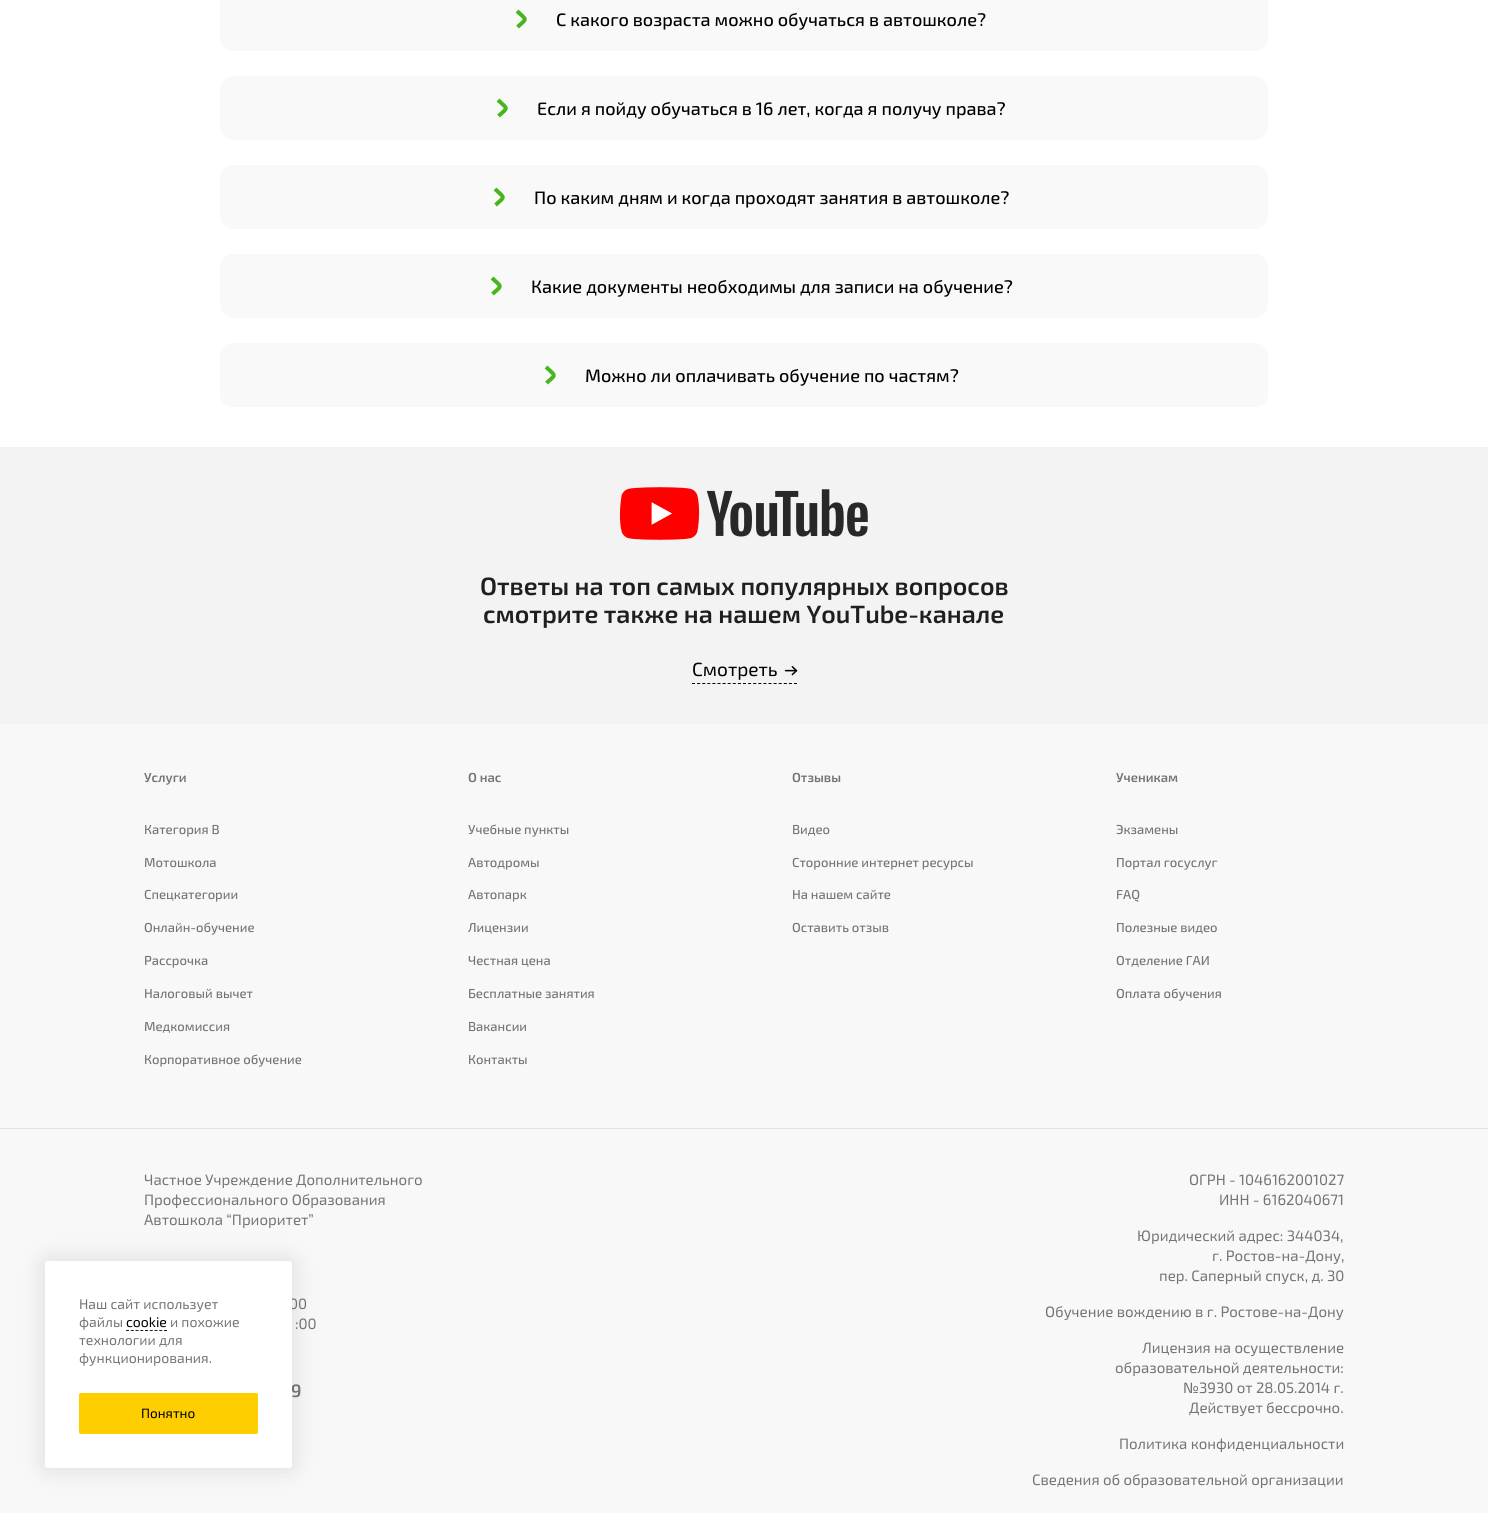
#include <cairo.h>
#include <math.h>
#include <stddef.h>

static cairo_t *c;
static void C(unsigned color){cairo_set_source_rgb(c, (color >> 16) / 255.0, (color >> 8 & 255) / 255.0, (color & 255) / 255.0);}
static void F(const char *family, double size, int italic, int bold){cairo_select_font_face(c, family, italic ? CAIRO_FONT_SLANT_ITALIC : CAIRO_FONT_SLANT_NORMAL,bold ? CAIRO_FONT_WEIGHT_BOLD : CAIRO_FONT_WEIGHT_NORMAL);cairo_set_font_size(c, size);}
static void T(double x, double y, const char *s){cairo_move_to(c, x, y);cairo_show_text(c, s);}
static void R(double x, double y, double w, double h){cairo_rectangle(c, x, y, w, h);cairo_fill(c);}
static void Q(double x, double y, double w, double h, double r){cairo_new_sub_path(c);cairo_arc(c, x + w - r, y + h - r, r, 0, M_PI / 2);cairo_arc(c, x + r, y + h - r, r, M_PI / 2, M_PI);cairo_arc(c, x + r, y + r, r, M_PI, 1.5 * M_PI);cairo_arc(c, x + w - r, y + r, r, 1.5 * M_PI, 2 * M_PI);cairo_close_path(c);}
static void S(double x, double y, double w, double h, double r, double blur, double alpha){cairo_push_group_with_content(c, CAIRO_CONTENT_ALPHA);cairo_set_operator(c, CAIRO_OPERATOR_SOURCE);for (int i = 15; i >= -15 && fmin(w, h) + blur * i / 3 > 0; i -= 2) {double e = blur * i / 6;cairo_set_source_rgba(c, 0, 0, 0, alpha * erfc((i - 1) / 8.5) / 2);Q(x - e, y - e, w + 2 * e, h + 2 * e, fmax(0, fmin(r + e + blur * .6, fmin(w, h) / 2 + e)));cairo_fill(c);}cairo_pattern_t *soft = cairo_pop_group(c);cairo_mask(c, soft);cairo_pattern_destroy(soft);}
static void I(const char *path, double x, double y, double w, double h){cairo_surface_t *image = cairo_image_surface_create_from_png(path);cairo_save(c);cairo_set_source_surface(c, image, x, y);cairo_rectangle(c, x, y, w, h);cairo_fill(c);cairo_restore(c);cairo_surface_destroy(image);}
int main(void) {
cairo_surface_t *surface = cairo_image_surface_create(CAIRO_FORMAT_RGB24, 1488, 1513);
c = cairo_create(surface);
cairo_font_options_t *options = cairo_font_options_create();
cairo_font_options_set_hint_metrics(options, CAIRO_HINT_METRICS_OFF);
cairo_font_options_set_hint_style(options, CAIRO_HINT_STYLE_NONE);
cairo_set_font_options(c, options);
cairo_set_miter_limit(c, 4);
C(0xffffff);
cairo_paint(c);
C(0xf9f9f9);
Q(220,-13,1048,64,13);
cairo_fill(c);
cairo_new_path(c);
cairo_move_to(c,517.5,27);
cairo_curve_to(c,527.5,18,527,20.5,517,11);
C(0x48b51e);
cairo_set_line_width(c,4);
cairo_stroke(c);
F("Exo 2 Medium",18,0,0);
C(0x000000);
T(556,26,"С какого возраста можно обучаться в автошколе?");
C(0xf9f9f9);
Q(220,76,1048,64,13);
cairo_fill(c);
cairo_new_path(c);
cairo_move_to(c,498.5,116);
cairo_curve_to(c,508.5,107,508,109.5,498,100);
C(0x48b51e);
cairo_stroke(c);
C(0x000000);
T(537,115,"Если я пойду обучаться в 16 лет, когда я получу права?");
C(0xf9f9f9);
Q(220,165,1048,64,13);
cairo_fill(c);
cairo_new_path(c);
cairo_move_to(c,495.5,205);
cairo_curve_to(c,505.5,196,505,198.5,495,189);
C(0x48b51e);
cairo_stroke(c);
C(0x000000);
T(534,204,"По каким дням и когда проходят занятия в автошколе?");
C(0xf9f9f9);
Q(220,254,1048,64,13);
cairo_fill(c);
cairo_new_path(c);
cairo_move_to(c,492.5,294);
cairo_curve_to(c,502.5,285,502,287.5,492,278);
C(0x48b51e);
cairo_stroke(c);
C(0x000000);
T(531,293,"Какие документы необходимы для записи на обучение?");
C(0xf9f9f9);
Q(220,343,1048,64,13);
cairo_fill(c);
cairo_new_path(c);
cairo_move_to(c,546.5,383);
cairo_curve_to(c,556.5,374,556,376.5,546,367);
C(0x48b51e);
cairo_stroke(c);
C(0x000000);
T(585,382,"Можно ли оплачивать обучение по частям?");
C(0xf3f3f3);
R(0,447,1488,277);
I("1.png",619,487,249,53);
F("Exo 2 SemiBold",25,0,0);
C(0x1f1f1f);
T(480,595,"Ответы на топ самых популярных вопросов");
T(483,623,"смотрите также на нашем YouTube-канале");
cairo_new_path(c);
cairo_move_to(c,692,683.5);
cairo_line_to(c,797,683.5);
C(0x000000);
cairo_set_line_width(c,1);
cairo_set_dash(c,(double[]){3,2.1},2,0);
cairo_stroke(c);
F("Exo 2",19,0,0);
T(692,676,"Смотреть");
I("2.png",784,666,14,10);
C(0xf8f8f8);
R(0,724,1488,789);
F("Exo 2 SemiBold",13,0,0);
C(0x747474);
T(144,782,"Услуги");
F("Exo 2 Medium",13,0,0);
T(144,834,"Категория B");
T(144,867,"Мотошкола");
T(144,899,"Спецкатегории");
T(144,932,"Онлайн-обучение");
T(144,965,"Рассрочка");
T(144,998,"Налоговый вычет");
T(144,1031,"Медкомиссия");
T(144,1064,"Корпоративное обучение");
F("Exo 2 SemiBold",13,0,0);
T(468,782,"О нас");
F("Exo 2 Medium",13,0,0);
T(468,834,"Учебные пункты");
T(468,867,"Автодромы");
T(468,899,"Автопарк");
T(468,932,"Лицензии");
T(468,965,"Честная цена");
T(468,998,"Бесплатные занятия");
T(468,1031,"Вакансии");
T(468,1064,"Контакты");
F("Exo 2 SemiBold",13,0,0);
T(792,782,"Отзывы");
F("Exo 2 Medium",13,0,0);
T(792,834,"Видео");
T(792,867,"Сторонние интернет ресурсы");
T(792,899,"На нашем сайте");
T(792,932,"Оставить отзыв");
F("Exo 2 SemiBold",13,0,0);
T(1116,782,"Ученикам");
F("Exo 2 Medium",13,0,0);
T(1116,834,"Экзамены");
T(1116,867,"Портал госуслуг");
T(1116,899,"FAQ");
T(1116,932,"Полезные видео");
T(1116,965,"Отделение ГАИ");
T(1116,998,"Оплата обучения");
C(0xe3e3e3);
R(0,1128,1488,1);
F("Exo 2",15,0,0);
C(0x747474);
T(144,1185,"Частное Учреждение Дополнительного");
T(144,1205,"Профессионального Образования");
T(144,1225,"Автошкола “Приоритет”");
T(289,1309,"00");
T(295,1329,":00");
F("Exo 2 SemiBold",18,0,0);
T(291,1397,"9");
F("Exo 2",15,0,0);
T(1189,1185,"ОГРН - 1046162001027");
T(1219,1205,"ИНН - 6162040671");
T(1137,1241,"Юридический адрес: 344034,");
T(1212,1261,"г. Ростов-на-Дону,");
T(1159,1281,"пер. Саперный спуск, д. 30");
T(1045,1317,"Обучение вождению в г. Ростове-на-Дону");
T(1142,1353,"Лицензия на осуществление");
T(1115,1373,"образовательной деятельности:");
T(1183,1393,"№3930 от 28.05.2014 г.");
T(1189,1413,"Действует бессрочно.");
T(1119,1449,"Политика конфиденциальности");
T(1032,1485,"Сведения об образовательной организации");
C(0x495453);
S(45,1261,247,207,3,12.5,.19);
C(0xffffff);
Q(45,1261,247,207,3);
cairo_fill(c);
F("Exo 2",14,0,0);
C(0x747474);
T(79,1309,"Наш сайт использует");
T(79,1327,"файлы");
C(0x000000);
T(126,1327,"cookie");
cairo_new_path(c);
cairo_move_to(c,126,1330.5);
cairo_line_to(c,167,1330.5);
C(0x1f1f1f);
cairo_set_dash(c,(double[]){3,1.75},2,0);
cairo_stroke(c);
C(0x747474);
T(170,1327,"и похожие");
T(79,1345,"технологии для");
T(79,1363,"функционирования.");
C(0xffce00);
Q(79,1393,179,41,2);
cairo_fill(c);
F("Exo 2",13.5,0,0);
C(0x000000);
T(141,1418,"Понятно");
cairo_surface_write_to_png(surface, "o.png");
cairo_font_options_destroy(options);
cairo_destroy(c);
cairo_surface_destroy(surface);
return 0;
}
